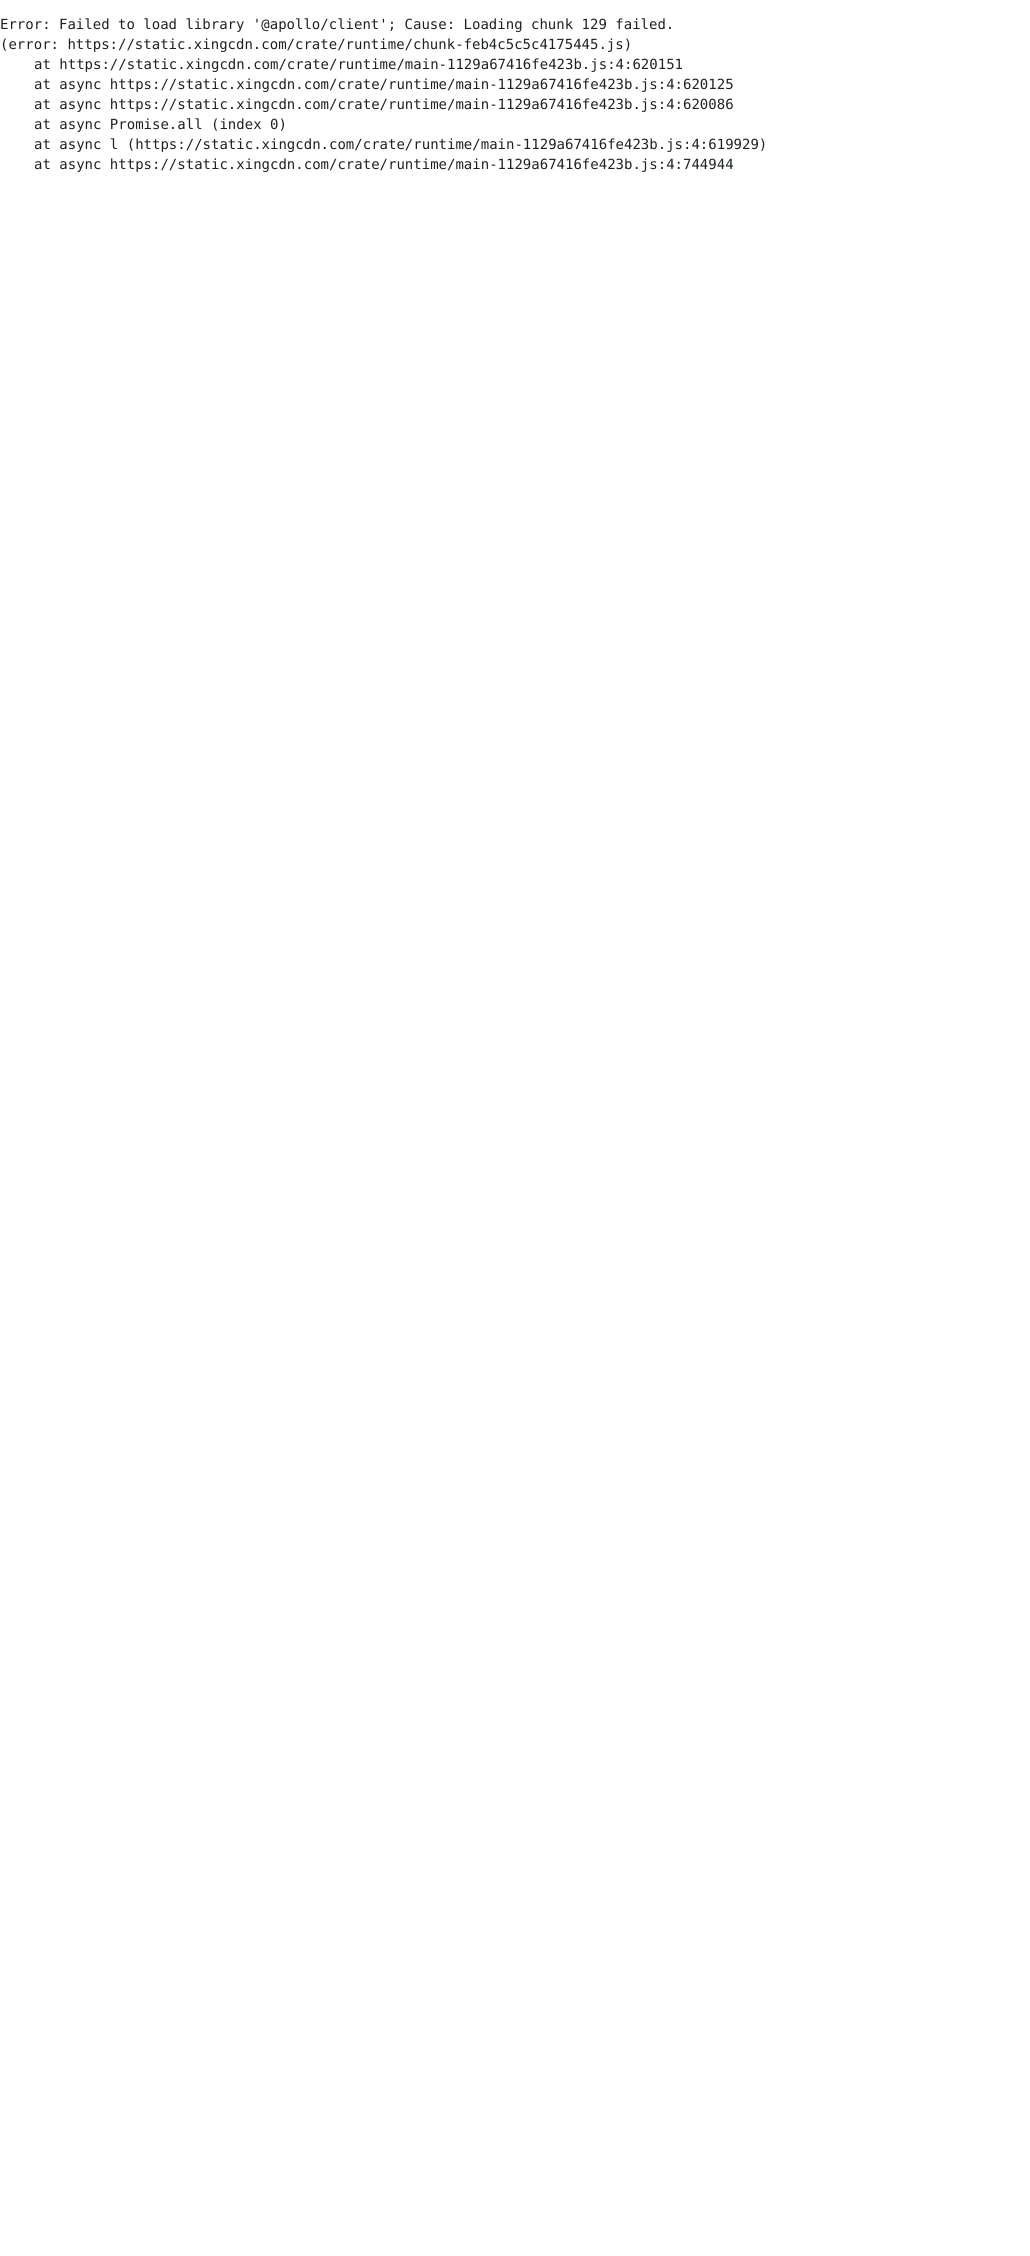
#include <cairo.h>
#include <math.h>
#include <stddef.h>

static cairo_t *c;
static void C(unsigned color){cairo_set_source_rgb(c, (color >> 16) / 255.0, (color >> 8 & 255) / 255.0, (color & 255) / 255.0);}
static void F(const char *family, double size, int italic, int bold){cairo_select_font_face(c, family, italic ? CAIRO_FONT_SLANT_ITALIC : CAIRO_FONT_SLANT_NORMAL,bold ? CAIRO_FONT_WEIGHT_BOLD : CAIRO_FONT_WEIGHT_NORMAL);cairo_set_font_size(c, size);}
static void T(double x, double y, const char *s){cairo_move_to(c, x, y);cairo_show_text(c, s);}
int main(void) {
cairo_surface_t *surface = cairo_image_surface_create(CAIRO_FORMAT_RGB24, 1030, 2256);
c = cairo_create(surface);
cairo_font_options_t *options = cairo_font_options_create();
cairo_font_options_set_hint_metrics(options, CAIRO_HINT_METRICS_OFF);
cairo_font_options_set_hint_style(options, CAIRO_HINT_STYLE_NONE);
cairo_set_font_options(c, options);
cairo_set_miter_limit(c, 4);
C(0xffffff);
cairo_paint(c);
F("DejaVu Sans Mono",14,0,0);
C(0x1d2124);
T(0,29,"Error: Failed to load library '@apollo/client'; Cause: Loading chunk 129 failed.");
T(0,49,"(error: https://static.xingcdn.com/crate/runtime/chunk-feb4c5c5c4175445.js)");
T(34,69,"at https://static.xingcdn.com/crate/runtime/main-1129a67416fe423b.js:4:620151");
T(34,89,"at async https://static.xingcdn.com/crate/runtime/main-1129a67416fe423b.js:4:620125");
T(34,109,"at async https://static.xingcdn.com/crate/runtime/main-1129a67416fe423b.js:4:620086");
T(34,129,"at async Promise.all (index 0)");
T(34,149,"at async l (https://static.xingcdn.com/crate/runtime/main-1129a67416fe423b.js:4:619929)");
T(34,169,"at async https://static.xingcdn.com/crate/runtime/main-1129a67416fe423b.js:4:744944");
cairo_surface_write_to_png(surface, "o.png");
cairo_font_options_destroy(options);
cairo_destroy(c);
cairo_surface_destroy(surface);
return 0;
}
